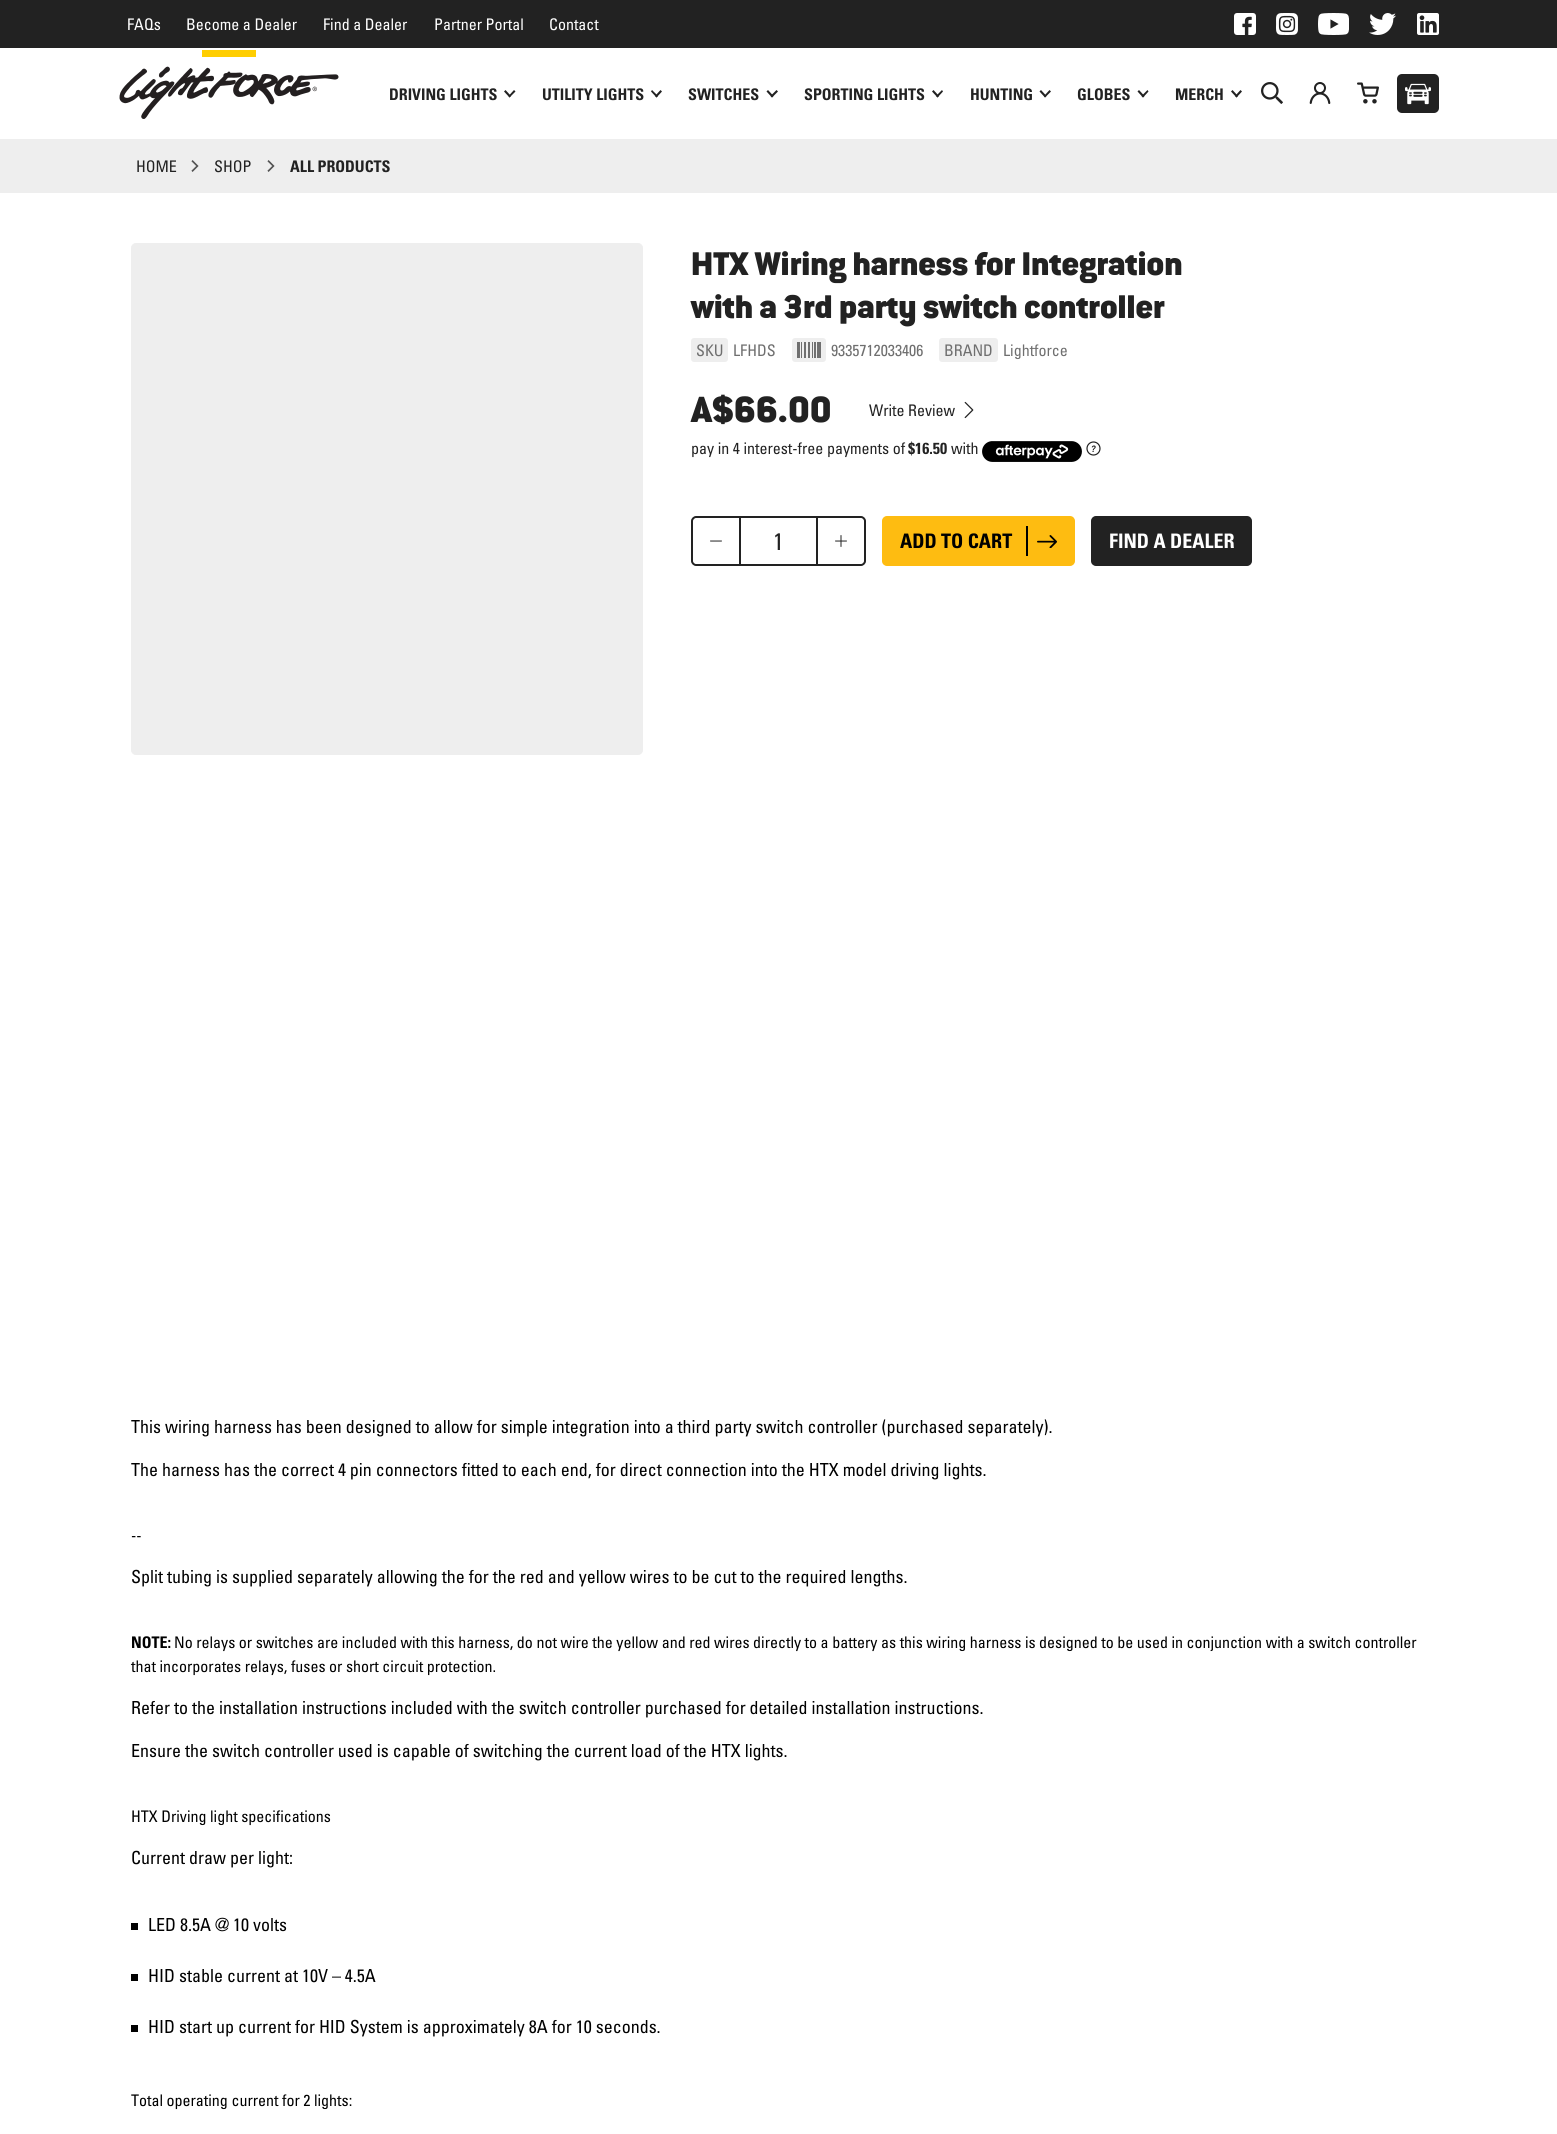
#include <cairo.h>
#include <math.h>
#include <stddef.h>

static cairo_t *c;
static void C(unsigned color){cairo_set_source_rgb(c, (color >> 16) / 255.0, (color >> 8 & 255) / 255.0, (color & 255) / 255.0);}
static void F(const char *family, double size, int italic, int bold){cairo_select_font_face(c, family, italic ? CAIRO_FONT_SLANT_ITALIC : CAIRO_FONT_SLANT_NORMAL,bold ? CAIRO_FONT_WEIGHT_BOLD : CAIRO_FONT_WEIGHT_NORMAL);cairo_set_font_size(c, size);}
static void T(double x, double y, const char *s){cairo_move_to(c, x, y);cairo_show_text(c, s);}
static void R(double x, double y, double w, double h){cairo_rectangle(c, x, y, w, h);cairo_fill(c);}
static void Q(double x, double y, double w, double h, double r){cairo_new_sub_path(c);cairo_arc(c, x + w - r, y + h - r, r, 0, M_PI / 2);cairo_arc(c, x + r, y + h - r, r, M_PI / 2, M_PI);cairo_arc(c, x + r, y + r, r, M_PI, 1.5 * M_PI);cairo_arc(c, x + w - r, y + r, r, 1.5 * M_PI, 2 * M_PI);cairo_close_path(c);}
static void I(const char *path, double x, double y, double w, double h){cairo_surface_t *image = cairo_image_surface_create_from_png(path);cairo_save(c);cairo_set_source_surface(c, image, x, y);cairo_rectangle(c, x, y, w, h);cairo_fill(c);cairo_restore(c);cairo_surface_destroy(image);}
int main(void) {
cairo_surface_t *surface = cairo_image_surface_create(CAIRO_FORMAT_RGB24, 1557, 2134);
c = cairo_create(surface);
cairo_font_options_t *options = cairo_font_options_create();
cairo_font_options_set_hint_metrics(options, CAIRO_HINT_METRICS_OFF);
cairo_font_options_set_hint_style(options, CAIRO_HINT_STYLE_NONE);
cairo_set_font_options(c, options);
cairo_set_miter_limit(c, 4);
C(0xffffff);
cairo_paint(c);
C(0x222222);
R(0,0,1557,48);
F("Univers",16,0,0);
C(0xffffff);
T(127,30,"FAQs");
T(186,30,"Become a Dealer");
T(323,30,"Find a Dealer");
T(434,30,"Partner Portal");
T(549,30,"Contact");
I("1.png",1234,13,22,22);
I("2.png",1276,13,22,22);
I("3.png",1318,13,31,22);
I("4.png",1369,13,27,22);
I("5.png",1417,13,22,22);
I("6.png",119,50,220,69);
F("Univers",16,0,1);
C(0x222222);
T(389,100,"DRIVING LIGHTS");
cairo_new_path(c);
cairo_move_to(c,515.5,91.5);
cairo_line_to(c,509.5,97.5);
cairo_line_to(c,508.5,96);
cairo_line_to(c,514,90);
cairo_close_path(c);
cairo_fill(c);
cairo_new_path(c);
cairo_move_to(c,511,96);
cairo_line_to(c,509.5,97.5);
cairo_line_to(c,504,91.5);
cairo_line_to(c,505.5,90);
cairo_close_path(c);
cairo_fill(c);
T(542,100,"UTILITY LIGHTS");
cairo_new_path(c);
cairo_move_to(c,662,91.5);
cairo_line_to(c,656.5,97.5);
cairo_line_to(c,655,96);
cairo_line_to(c,660.5,90);
cairo_close_path(c);
cairo_fill(c);
cairo_new_path(c);
cairo_move_to(c,658,96);
cairo_line_to(c,656.5,97.5);
cairo_line_to(c,651,91.5);
cairo_line_to(c,652,90);
cairo_close_path(c);
cairo_fill(c);
T(688,100,"SWITCHES");
cairo_new_path(c);
cairo_move_to(c,778,91.5);
cairo_line_to(c,772,97.5);
cairo_line_to(c,770.5,96);
cairo_line_to(c,776.5,90);
cairo_close_path(c);
cairo_fill(c);
cairo_new_path(c);
cairo_move_to(c,773.5,96);
cairo_line_to(c,772,97.5);
cairo_line_to(c,766.5,91.5);
cairo_line_to(c,768,90);
cairo_close_path(c);
cairo_fill(c);
T(804,100,"SPORTING LIGHTS");
cairo_new_path(c);
cairo_move_to(c,943,91.5);
cairo_line_to(c,937.5,97.5);
cairo_line_to(c,936,96);
cairo_line_to(c,942,90);
cairo_close_path(c);
cairo_fill(c);
cairo_new_path(c);
cairo_move_to(c,939,96);
cairo_line_to(c,937.5,97.5);
cairo_line_to(c,932,91.5);
cairo_line_to(c,933.5,90);
cairo_close_path(c);
cairo_fill(c);
T(970,100,"HUNTING");
cairo_new_path(c);
cairo_move_to(c,1051,91.5);
cairo_line_to(c,1045,97.5);
cairo_line_to(c,1044,96);
cairo_line_to(c,1049.5,90);
cairo_close_path(c);
cairo_fill(c);
cairo_new_path(c);
cairo_move_to(c,1046.5,96);
cairo_line_to(c,1045,97.5);
cairo_line_to(c,1039.5,91.5);
cairo_line_to(c,1041,90);
cairo_close_path(c);
cairo_fill(c);
T(1077,100,"GLOBES");
cairo_new_path(c);
cairo_move_to(c,1148.5,91.5);
cairo_line_to(c,1143,97.5);
cairo_line_to(c,1141.5,96);
cairo_line_to(c,1147.5,90);
cairo_close_path(c);
cairo_fill(c);
cairo_new_path(c);
cairo_move_to(c,1144.5,96);
cairo_line_to(c,1143,97.5);
cairo_line_to(c,1137.5,91.5);
cairo_line_to(c,1139,90);
cairo_close_path(c);
cairo_fill(c);
T(1175,100,"MERCH");
cairo_new_path(c);
cairo_move_to(c,1242,91.5);
cairo_line_to(c,1236.5,97.5);
cairo_line_to(c,1235,96);
cairo_line_to(c,1240.5,90);
cairo_close_path(c);
cairo_fill(c);
cairo_new_path(c);
cairo_move_to(c,1238,96);
cairo_line_to(c,1236.5,97.5);
cairo_line_to(c,1231,91.5);
cairo_line_to(c,1232.5,90);
cairo_close_path(c);
cairo_fill(c);
I("7.png",1261,82,22,22);
I("8.png",1309,82,22,22);
I("9.png",1357,82,22,22);
Q(1397,74,42,39,5);
cairo_fill(c);
I("10.png",1405,83,26,22);
C(0xeeeeee);
R(0,139,1557,54);
F("Univers",16,0,0);
C(0x222222);
T(136,172,"HOME");
I("11.png",191,160,8,12);
T(214,172,"SHOP");
I("11.png",267,160,8,12);
F("Univers",16,0,1);
T(290,172,"ALL PRODUCTS");
C(0xeeeeee);
Q(131.5,243.5,511,511,4.5);
cairo_fill_preserve(c);
cairo_set_line_width(c,1);
cairo_stroke(c);
F("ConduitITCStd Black",36,0,0);
C(0x222222);
T(691,275,"HTX Wiring harness for Integration");
T(691,318,"with a 3rd party switch controller");
C(0xeeeeee);
Q(691,338,37,24,3);
cairo_fill(c);
F("Univers",16,0,0);
C(0x6f6f6f);
T(696,356,"SKU");
T(733,356,"LFHDS");
C(0xeeeeee);
Q(792,338,34,24,3);
cairo_fill(c);
I("12.png",797,342,24,16);
C(0x6f6f6f);
T(831,356,"9335712033406");
C(0xeeeeee);
Q(939,338,59,24,3);
cairo_fill(c);
C(0x6f6f6f);
T(944,356,"BRAND");
T(1003,356,"Lightforce");
F("ConduitITCStd Black",40,0,0);
C(0x222222);
T(691,422,"A$66.00");
F("Univers",16,0,0);
T(869,416,"Write Review");
I("13.png",964,401,10,18);
T(691,454,"pay in 4 interest-free payments of");
F("Univers",16,0,1);
T(908,454,"$16.50");
F("Univers",16,0,0);
T(951,454,"with");
I("14.png",982,441,100,21);
I("15.png",1086,441,15,15);
cairo_new_path(c);
cairo_move_to(c,696,517);
cairo_line_to(c,740,517);
cairo_line_to(c,740,565);
cairo_line_to(c,696,565);
cairo_curve_to(c,694,565,692,563,692,561);
cairo_line_to(c,692,521);
cairo_curve_to(c,692,519,694,517,696,517);
cairo_close_path(c);
cairo_set_line_width(c,2);
cairo_stroke(c);
I("16.png",710,540,12,2);
R(741,516,75,2);
R(741,564,75,2);
F("Univers",24,0,0);
T(773,550,"1");
cairo_new_path(c);
cairo_move_to(c,817,517);
cairo_line_to(c,861,517);
cairo_curve_to(c,863,517,865,519,865,521);
cairo_line_to(c,865,561);
cairo_curve_to(c,865,563,863,565,861,565);
cairo_line_to(c,817,565);
cairo_close_path(c);
cairo_stroke(c);
I("17.png",835,535,12,12);
C(0xfebc11);
Q(883,517,191,48,4);
cairo_fill_preserve(c);
cairo_stroke(c);
F("Univers",20,0,1);
C(0x000000);
T(900,548,"ADD TO CART");
R(1026,526,2,30);
I("18.png",1037,535,20,13);
C(0x222222);
Q(1092,517,159,48,4);
cairo_fill_preserve(c);
cairo_stroke(c);
C(0xffffff);
T(1109,548,"FIND A DEALER");
F("Univers",18,0,0);
C(0x000000);
T(131,1433,"This wiring harness has been designed to allow for simple integration into a third party switch controller (purchased separately).");
T(131,1476,"The harness has the correct 4 pin connectors fitted to each end, for direct connection into the HTX model driving lights.");
F("Univers",16,0,0);
T(131,1541,"--");
F("Univers",18,0,0);
T(131,1583,"Split tubing is supplied separately allowing the for the red and yellow wires to be cut to the required lengths.");
F("Univers",16,0,1);
T(131,1648,"NOTE:");
F("Univers",16,0,0);
T(174,1648,"No relays or switches are included with this harness, do not wire the yellow and red wires directly to a battery as this wiring harness is designed to be used in conjunction with a switch controller");
T(131,1672,"that incorporates relays, fuses or short circuit protection.");
F("Univers",18,0,0);
T(131,1714,"Refer to the installation instructions included with the switch controller purchased for detailed installation instructions.");
T(131,1757,"Ensure the switch controller used is capable of switching the current load of the HTX lights.");
F("Univers",16,0,0);
T(131,1822,"HTX Driving light specifications");
F("Univers",18,0,0);
T(131,1864,"Current draw per light:");
R(131,1923,7,7);
T(148,1931,"LED 8.5A @ 10 volts");
R(131,1974,7,7);
T(148,1982,"HID stable current at 10V – 4.5A");
R(131,2025,7,7);
T(148,2033,"HID start up current for HID System is approximately 8A for 10 seconds.");
F("Univers",16,0,0);
T(131,2106,"Total operating current for 2 lights:");
cairo_surface_write_to_png(surface, "o.png");
cairo_font_options_destroy(options);
cairo_destroy(c);
cairo_surface_destroy(surface);
return 0;
}
